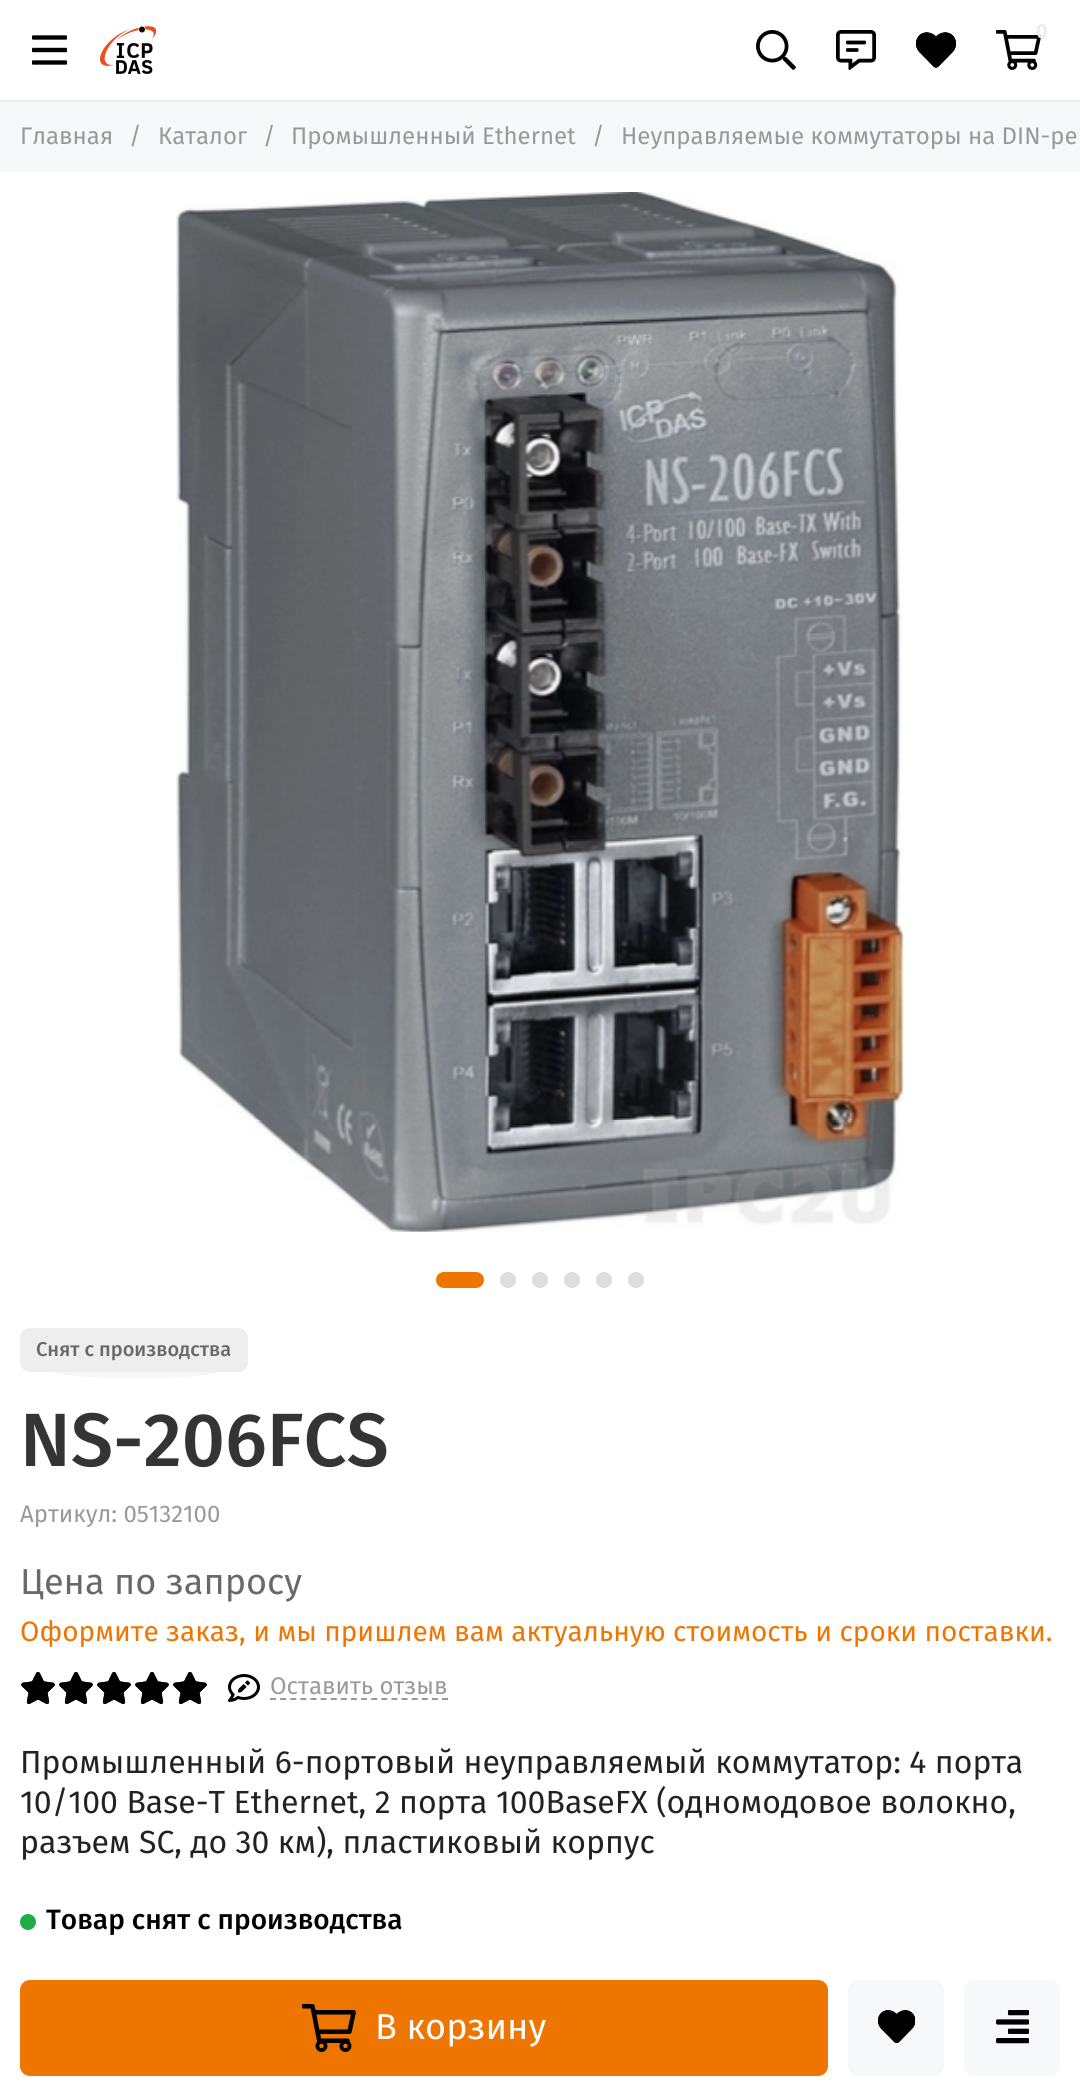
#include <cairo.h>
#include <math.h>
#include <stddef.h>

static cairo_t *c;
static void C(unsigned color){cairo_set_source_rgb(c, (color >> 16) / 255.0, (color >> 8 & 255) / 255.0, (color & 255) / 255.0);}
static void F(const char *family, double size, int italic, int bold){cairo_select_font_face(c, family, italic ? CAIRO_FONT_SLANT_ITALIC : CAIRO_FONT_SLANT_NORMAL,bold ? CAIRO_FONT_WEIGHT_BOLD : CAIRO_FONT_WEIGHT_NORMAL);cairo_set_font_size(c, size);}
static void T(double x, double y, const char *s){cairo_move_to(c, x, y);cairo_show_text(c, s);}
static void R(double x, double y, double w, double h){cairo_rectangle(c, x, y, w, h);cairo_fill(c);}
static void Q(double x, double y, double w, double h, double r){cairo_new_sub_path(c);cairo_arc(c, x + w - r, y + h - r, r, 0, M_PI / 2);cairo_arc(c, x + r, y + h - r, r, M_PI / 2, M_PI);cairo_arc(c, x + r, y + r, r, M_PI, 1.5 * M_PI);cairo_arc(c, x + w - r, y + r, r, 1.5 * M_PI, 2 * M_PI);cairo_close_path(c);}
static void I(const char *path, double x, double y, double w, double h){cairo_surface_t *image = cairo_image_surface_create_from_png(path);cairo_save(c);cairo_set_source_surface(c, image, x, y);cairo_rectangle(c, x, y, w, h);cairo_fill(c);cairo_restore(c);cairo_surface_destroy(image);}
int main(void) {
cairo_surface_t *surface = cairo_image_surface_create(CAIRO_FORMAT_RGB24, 1080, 2090);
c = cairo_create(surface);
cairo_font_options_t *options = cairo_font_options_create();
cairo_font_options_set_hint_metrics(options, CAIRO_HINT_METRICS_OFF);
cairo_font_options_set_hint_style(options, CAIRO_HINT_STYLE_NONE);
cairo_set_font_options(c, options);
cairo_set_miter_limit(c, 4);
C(0xffffff);
cairo_paint(c);
C(0xeeeeee);
R(0,100,1080,2);
I("1.png",32,35,35,30);
I("2.png",100,26,56,48);
I("3.png",756,30,40,40);
I("4.png",836,30,40,40);
I("5.png",916,32,40,36);
I("6.png",996,30,45,40);
F("Fira Sans Medium",20,0,0);
C(0xe9e9e9);
T(1036,38,"0");
C(0xf7f8fa);
R(0,102,1080,70);
F("Fira Sans",24,0,0);
C(0x999999);
T(20,144,"Главная");
T(129,144,"/");
T(158,144,"Каталог");
T(263,144,"/");
T(291,144,"Промышленный Ethernet");
T(592,144,"/");
T(621,144,"Неуправляемые коммутаторы на DIN-ре");
I("7.png",176,192,728,1040);
C(0xee7500);
Q(436,1272,48,16,8);
cairo_fill(c);
C(0xdddddd);
cairo_arc(c,508,1280,8,0,2 * M_PI);
cairo_fill(c);
cairo_arc(c,540,1280,8,0,2 * M_PI);
cairo_fill(c);
cairo_arc(c,572,1280,8,0,2 * M_PI);
cairo_fill(c);
cairo_arc(c,604,1280,8,0,2 * M_PI);
cairo_fill(c);
cairo_arc(c,636,1280,8,0,2 * M_PI);
cairo_fill(c);
C(0xeeeeee);
Q(20,1328,228,44,10);
cairo_fill(c);
cairo_set_source_rgba(c,0.933,0.933,0.933,0.5);
cairo_new_path(c);
cairo_move_to(c,114,1338);
cairo_line_to(c,154,1338);
cairo_curve_to(c,199,1338,236,1345,236,1354);
cairo_line_to(c,236,1362);
cairo_curve_to(c,236,1371,199,1378,154,1378);
cairo_line_to(c,114,1378);
cairo_curve_to(c,69,1378,32,1371,32,1362);
cairo_line_to(c,32,1354);
cairo_curve_to(c,32,1345,69,1338,114,1338);
cairo_close_path(c);
cairo_fill(c);
F("Fira Sans Medium",20,0,0);
C(0x696969);
T(36,1356,"Снят с производства");
F("Fira Sans Medium",75.5,0,0);
C(0x343434);
T(20,1466,"NS-206FCS");
F("Fira Sans",24,0,0);
C(0x999999);
T(20,1522,"Артикул: 05132100");
F("Fira Sans",36,0,0);
C(0x696969);
T(20,1594,"Цена по запросу");
F("Fira Sans",28,0,0);
C(0xee7500);
T(20,1641,"Оформите заказ, и мы пришлем вам актуальную стоимость и сроки поставки.");
I("8.png",21,1672,34,32);
I("8.png",59,1672,34,32);
I("8.png",97,1672,34,32);
I("8.png",135,1672,34,32);
I("8.png",173,1672,34,32);
I("9.png",228,1674,32,28);
cairo_new_path(c);
cairo_move_to(c,270,1699);
cairo_line_to(c,448,1699);
C(0x999999);
cairo_set_dash(c,(double[]){6,4.12},2,0);
cairo_stroke(c);
F("Fira Sans",24,0,0);
T(270,1694,"Оставить отзыв");
F("Fira Sans",32,0,0);
C(0x222222);
T(20,1773,"Промышленный 6-портовый неуправляемый коммутатор: 4 порта");
T(20,1813,"10/100 Base-T Ethernet, 2 порта 100BaseFX (одномодовое волокно,");
T(20,1853,"разъем SC, до 30 км), пластиковый корпус");
C(0x20ab47);
cairo_new_path(c);
cairo_arc(c,28,1922,8,0,2 * M_PI);
cairo_fill(c);
F("Fira Sans Medium",28,0,0);
C(0x000000);
T(46,1929,"Товар снят с производства");
C(0xee7500);
Q(20,1980,808,96,10);
cairo_fill(c);
I("10.png",302,2004,54,48);
F("Fira Sans",36,0,0);
C(0xffffff);
T(375,2039,"В корзину");
C(0xf7f8fa);
Q(848,1980,96,96,10);
cairo_fill(c);
I("11.png",878,2010,37,33);
Q(964,1980,96,96,10);
cairo_fill(c);
I("12.png",996,2010,33,34);
cairo_surface_write_to_png(surface, "o.png");
cairo_font_options_destroy(options);
cairo_destroy(c);
cairo_surface_destroy(surface);
return 0;
}
